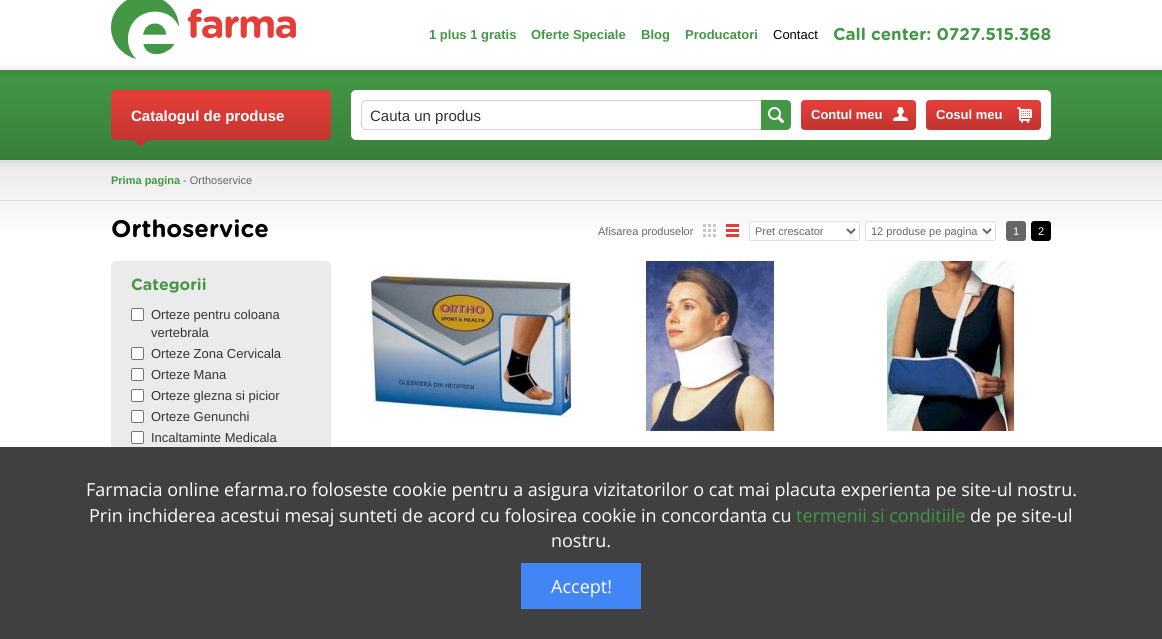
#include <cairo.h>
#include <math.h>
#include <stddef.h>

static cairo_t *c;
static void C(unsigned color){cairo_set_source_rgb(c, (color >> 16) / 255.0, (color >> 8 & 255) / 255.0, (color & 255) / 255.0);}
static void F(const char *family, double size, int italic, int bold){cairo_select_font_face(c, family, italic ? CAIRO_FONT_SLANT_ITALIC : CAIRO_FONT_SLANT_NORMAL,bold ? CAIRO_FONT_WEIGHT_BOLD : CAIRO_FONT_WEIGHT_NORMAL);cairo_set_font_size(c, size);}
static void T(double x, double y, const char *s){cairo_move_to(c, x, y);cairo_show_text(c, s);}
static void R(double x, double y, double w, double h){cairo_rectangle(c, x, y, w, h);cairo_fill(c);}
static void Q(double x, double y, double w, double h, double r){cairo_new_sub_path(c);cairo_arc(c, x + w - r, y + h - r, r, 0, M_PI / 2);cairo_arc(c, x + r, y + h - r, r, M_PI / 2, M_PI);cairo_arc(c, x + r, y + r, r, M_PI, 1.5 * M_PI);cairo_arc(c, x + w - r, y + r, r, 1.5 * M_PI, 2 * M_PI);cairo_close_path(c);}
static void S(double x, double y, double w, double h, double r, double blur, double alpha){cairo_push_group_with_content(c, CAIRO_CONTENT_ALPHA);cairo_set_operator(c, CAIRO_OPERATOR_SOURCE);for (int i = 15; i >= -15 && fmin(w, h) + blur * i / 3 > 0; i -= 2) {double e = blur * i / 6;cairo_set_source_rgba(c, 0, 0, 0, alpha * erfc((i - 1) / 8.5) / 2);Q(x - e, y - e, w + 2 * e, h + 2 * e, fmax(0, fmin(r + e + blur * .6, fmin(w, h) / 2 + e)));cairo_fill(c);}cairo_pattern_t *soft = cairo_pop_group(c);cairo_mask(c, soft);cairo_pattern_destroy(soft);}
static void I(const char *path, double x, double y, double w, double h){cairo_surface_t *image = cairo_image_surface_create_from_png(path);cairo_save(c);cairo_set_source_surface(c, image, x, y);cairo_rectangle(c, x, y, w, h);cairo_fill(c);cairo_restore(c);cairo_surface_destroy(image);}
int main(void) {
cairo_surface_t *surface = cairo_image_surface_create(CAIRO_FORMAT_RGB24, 1162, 639);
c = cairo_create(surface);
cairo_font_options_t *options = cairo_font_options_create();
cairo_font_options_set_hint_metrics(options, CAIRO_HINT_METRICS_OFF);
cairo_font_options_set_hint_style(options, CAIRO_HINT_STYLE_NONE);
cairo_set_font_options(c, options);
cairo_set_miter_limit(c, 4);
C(0xffffff);
cairo_paint(c);
I("1.png",111,0,185,60);
F("Liberation Sans",13,0,1);
C(0x439745);
T(429,39,"1 plus 1 gratis");
T(531,39,"Oferte Speciale");
T(641,39,"Blog");
T(685,39,"Producatori");
F("Liberation Sans",13,0,0);
C(0x000000);
T(773,39,"Contact");
F("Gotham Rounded",17,0,1);
C(0x439745);
T(833,40,"Call center: 0727.515.368");
I("9.png",0,160,1162,68);
C(0x000000);
S(-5,65,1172,100,0,2.5,.06);
I("2.png",0,70,1162,90);
I("3.png",111,90,220,50);
F("Liberation Sans",15,0,1);
C(0xffffff);
T(131,121,"Catalogul de produse");
I("4.png",134,140,14,7);
Q(351,90,700,50,5);
cairo_fill(c);
Q(361.5,100.5,429,29,4.5);
C(0xd3d3d3);
cairo_set_line_width(c,1);
cairo_stroke(c);
F("Liberation Sans",15,0,0);
C(0x333333);
T(370,121,"Cauta un produs");
C(0x439745);
cairo_new_path(c);
cairo_move_to(c,761,100);
cairo_line_to(c,786,100);
cairo_curve_to(c,789,100,791,102,791,105);
cairo_line_to(c,791,125);
cairo_curve_to(c,791,128,789,130,786,130);
cairo_line_to(c,761,130);
cairo_close_path(c);
cairo_fill(c);
I("5.png",768,107,16,16);
I("6.png",801,100,115,30);
F("Liberation Sans",13,0,1);
C(0xffffff);
T(811,119,"Contul meu");
I("7.png",893,107,15,14);
I("6.png",926,100,115,30);
T(936,119,"Cosul meu");
I("8.png",1017,107,15,16);
C(0xdedede);
R(0,200,1162,1);
F("Liberation Sans",11,0,1);
C(0x439745);
T(111,184,"Prima pagina");
F("Liberation Sans",11,0,0);
C(0x666666);
T(183,184,"- Orthoservice");
F("Gotham Rounded",24,0,1);
C(0x000000);
T(111,237,"Orthoservice");
F("Liberation Sans",11,0,0);
C(0x666666);
T(598,235,"Afisarea produselor");
I("10.png",703,224,13,13);
I("11.png",726,224,13,13);
C(0xffffff);
Q(749.5,221.5,110,19,1.5);
cairo_fill_preserve(c);
C(0xdedede);
cairo_stroke(c);
cairo_new_path(c);
cairo_move_to(c,847,229);
cairo_line_to(c,851,233);
cairo_line_to(c,855,229);
C(0x666666);
cairo_set_line_width(c,2);
cairo_stroke(c);
T(755,235,"Pret crescator");
C(0xffffff);
Q(865.5,221.5,130,19,1.5);
cairo_fill_preserve(c);
C(0xdedede);
cairo_set_line_width(c,1);
cairo_stroke(c);
cairo_new_path(c);
cairo_move_to(c,983,229);
cairo_line_to(c,987,233);
cairo_line_to(c,991,229);
C(0x666666);
cairo_set_line_width(c,2);
cairo_stroke(c);
T(871,235,"12 produse pe pagina");
Q(1006,221,20,20,3);
cairo_fill(c);
C(0xffffff);
T(1013,235,"1");
C(0x000000);
Q(1031,221,20,20,3);
cairo_fill(c);
C(0xffffff);
T(1038,235,"2");
C(0xebebeb);
Q(111,261,220,228,5);
cairo_fill(c);
F("Gotham Rounded",16,0,1);
C(0x439745);
T(131,290,"Categorii");
C(0xffffff);
Q(131.5,308.5,12,12,1.5);
cairo_fill_preserve(c);
C(0x767676);
cairo_set_line_width(c,1);
cairo_stroke(c);
F("Liberation Sans",13,0,0);
C(0x333333);
T(151,319,"Orteze pentru coloana");
T(151,337,"vertebrala");
C(0xffffff);
Q(131.5,347.5,12,12,1.5);
cairo_fill_preserve(c);
C(0x767676);
cairo_stroke(c);
C(0x333333);
T(151,358,"Orteze Zona Cervicala");
C(0xffffff);
Q(131.5,368.5,12,12,1.5);
cairo_fill_preserve(c);
C(0x767676);
cairo_stroke(c);
C(0x333333);
T(151,379,"Orteze Mana");
C(0xffffff);
Q(131.5,389.5,12,12,1.5);
cairo_fill_preserve(c);
C(0x767676);
cairo_stroke(c);
C(0x333333);
T(151,400,"Orteze glezna si picior");
C(0xffffff);
Q(131.5,410.5,12,12,1.5);
cairo_fill_preserve(c);
C(0x767676);
cairo_stroke(c);
C(0x333333);
T(151,421,"Orteze Genunchi");
C(0xffffff);
Q(131.5,431.5,12,12,1.5);
cairo_fill_preserve(c);
C(0x767676);
cairo_stroke(c);
C(0x333333);
T(151,442,"Incaltaminte Medicala");
I("12.png",371,271,200,148);
I("13.png",643,261,140,170);
I("14.png",883,261,138,170);
C(0x404040);
R(0,447,1162,192);
F("Open Sans",18,0,0);
C(0xffffff);
T(86,496,"Farmacia online efarma.ro foloseste cookie pentru a asigura vizitatorilor o cat mai placuta experienta pe site-ul nostru.");
T(89,522,"Prin inchiderea acestui mesaj sunteti de acord cu folosirea cookie in concordanta cu");
C(0x439745);
T(796,522,"termenii si conditiile");
C(0xffffff);
T(970,522,"de pe site-ul");
T(551,547,"nostru.");
C(0x4285f4);
R(521,563,120,46);
C(0xffffff);
T(551,593,"Accept!");
cairo_surface_write_to_png(surface, "o.png");
cairo_font_options_destroy(options);
cairo_destroy(c);
cairo_surface_destroy(surface);
return 0;
}
